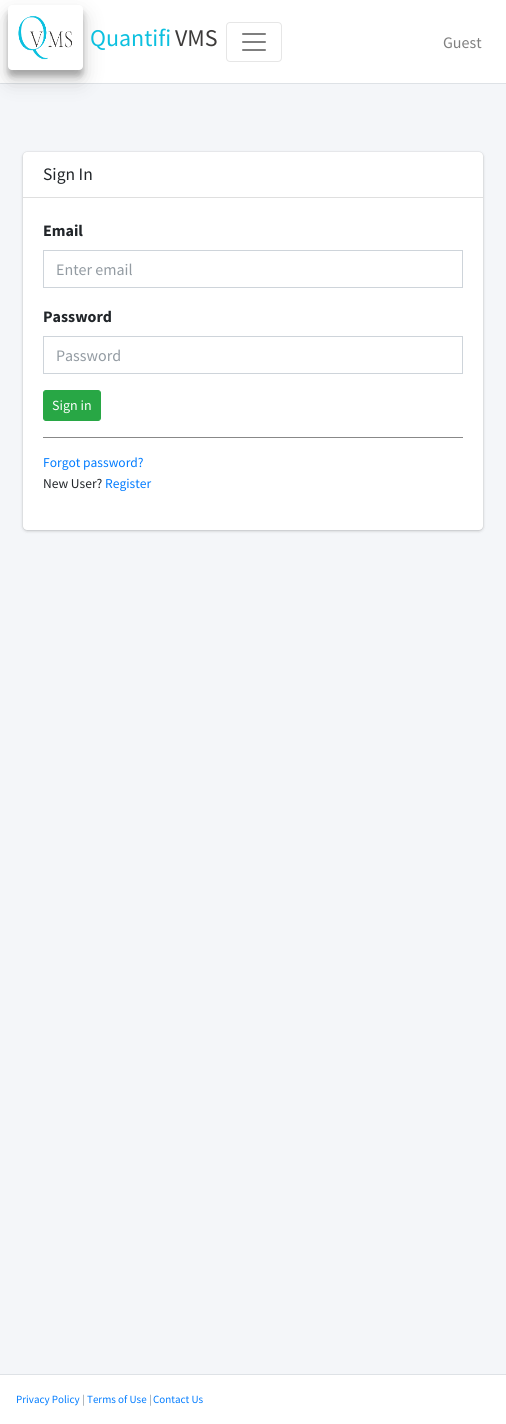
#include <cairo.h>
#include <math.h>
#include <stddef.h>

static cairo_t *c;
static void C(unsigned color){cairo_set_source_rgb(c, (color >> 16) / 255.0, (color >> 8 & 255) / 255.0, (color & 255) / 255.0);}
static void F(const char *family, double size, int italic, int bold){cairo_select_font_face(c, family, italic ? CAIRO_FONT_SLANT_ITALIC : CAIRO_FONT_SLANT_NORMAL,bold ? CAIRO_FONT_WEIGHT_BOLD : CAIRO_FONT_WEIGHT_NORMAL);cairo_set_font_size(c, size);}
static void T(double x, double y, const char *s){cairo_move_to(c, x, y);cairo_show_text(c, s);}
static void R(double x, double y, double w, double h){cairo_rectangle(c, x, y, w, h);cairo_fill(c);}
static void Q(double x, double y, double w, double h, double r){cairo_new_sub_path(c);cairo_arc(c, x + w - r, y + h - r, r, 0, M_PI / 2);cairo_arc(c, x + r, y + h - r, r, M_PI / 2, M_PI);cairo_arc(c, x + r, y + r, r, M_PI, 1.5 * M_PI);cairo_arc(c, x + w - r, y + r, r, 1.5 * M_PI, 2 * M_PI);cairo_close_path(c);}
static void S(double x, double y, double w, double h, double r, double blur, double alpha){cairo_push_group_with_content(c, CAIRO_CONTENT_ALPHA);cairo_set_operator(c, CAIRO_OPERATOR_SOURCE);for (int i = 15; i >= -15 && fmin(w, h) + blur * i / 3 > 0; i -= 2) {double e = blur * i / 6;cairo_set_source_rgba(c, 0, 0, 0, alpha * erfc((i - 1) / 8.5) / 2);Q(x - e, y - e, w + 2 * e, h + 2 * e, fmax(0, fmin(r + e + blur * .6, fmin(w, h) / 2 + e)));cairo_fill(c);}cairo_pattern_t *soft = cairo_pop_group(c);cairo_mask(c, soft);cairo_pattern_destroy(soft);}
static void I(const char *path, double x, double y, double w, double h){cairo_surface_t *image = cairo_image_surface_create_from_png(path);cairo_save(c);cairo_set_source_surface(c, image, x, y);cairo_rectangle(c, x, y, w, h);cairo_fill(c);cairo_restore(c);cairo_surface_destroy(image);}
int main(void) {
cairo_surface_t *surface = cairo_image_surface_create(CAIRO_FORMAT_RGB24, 506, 1424);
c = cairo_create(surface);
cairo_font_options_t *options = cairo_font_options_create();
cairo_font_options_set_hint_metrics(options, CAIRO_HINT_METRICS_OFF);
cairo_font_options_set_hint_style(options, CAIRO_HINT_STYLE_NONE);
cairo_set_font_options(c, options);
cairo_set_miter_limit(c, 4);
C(0xffffff);
cairo_paint(c);
C(0xdee2e6);
R(0,83,506,1);
C(0xf4f6f9);
R(0,84,506,1290);
C(0x000000);
S(8,15,75,65,4,10,.19);
S(8,11,75,65,4,3,.23);
C(0xffffff);
Q(8,5,75,65,4);
cairo_fill(c);
I("1.png",18,16,54,44);
F("Source Sans Pro",24,0,0);
C(0x0cc0df);
T(90,46,"Quantifi");
C(0x3d3b3a);
T(175,46,"VMS");
Q(226.5,22.5,55,39,3.5);
C(0xe6e6e6);
cairo_set_line_width(c,1);
cairo_stroke(c);
I("2.png",242,33,24,18);
F("Source Sans Pro",16,0,0);
C(0x808080);
T(443,48,"Guest");
C(0x000000);
S(23,153,460,378,4,1.5,.2);
S(23,152,460,378,4,.5,.12);
C(0xffffff);
Q(23,152,460,378,4);
cairo_fill(c);
C(0xdfdfdf);
R(23,197,460,1);
F("Source Sans Pro",17.5,0,0);
C(0x212529);
T(43,180,"Sign In");
F("Source Sans Pro",16,0,1);
T(43,236,"Email");
cairo_rectangle(c,43.5,250.5,419,37);
C(0xced4da);
cairo_stroke(c);
F("Source Sans Pro",16,0,0);
C(0x939ba2);
T(56,275,"Enter email");
F("Source Sans Pro",16,0,1);
C(0x212529);
T(43,322,"Password");
cairo_rectangle(c,43.5,336.5,419,37);
C(0xced4da);
cairo_stroke(c);
F("Source Sans Pro",16,0,0);
C(0x939ba2);
T(56,361,"Password");
C(0x28a745);
Q(43.5,390.5,57,30,2.5);
cairo_fill_preserve(c);
cairo_stroke(c);
F("Source Sans Pro",14,0,0);
C(0xffffff);
T(52,410,"Sign in");
C(0x888888);
R(43,437,420,1);
F("Source Sans Pro",13.5,0,0);
C(0x007bff);
T(43,467,"Forgot password?");
C(0x212529);
T(43,488,"New User?");
C(0x007bff);
T(105,488,"Register");
C(0xdee2e6);
R(0,1374,506,1);
F("Source Sans Pro",11,0,0);
C(0x007bff);
T(16,1403,"Privacy Policy");
C(0x869099);
T(82,1403,"|");
C(0x007bff);
T(87,1403,"Terms of Use");
C(0x869099);
T(149,1403,"|");
C(0x007bff);
T(153,1403,"Contact Us");
cairo_surface_write_to_png(surface, "o.png");
cairo_font_options_destroy(options);
cairo_destroy(c);
cairo_surface_destroy(surface);
return 0;
}
